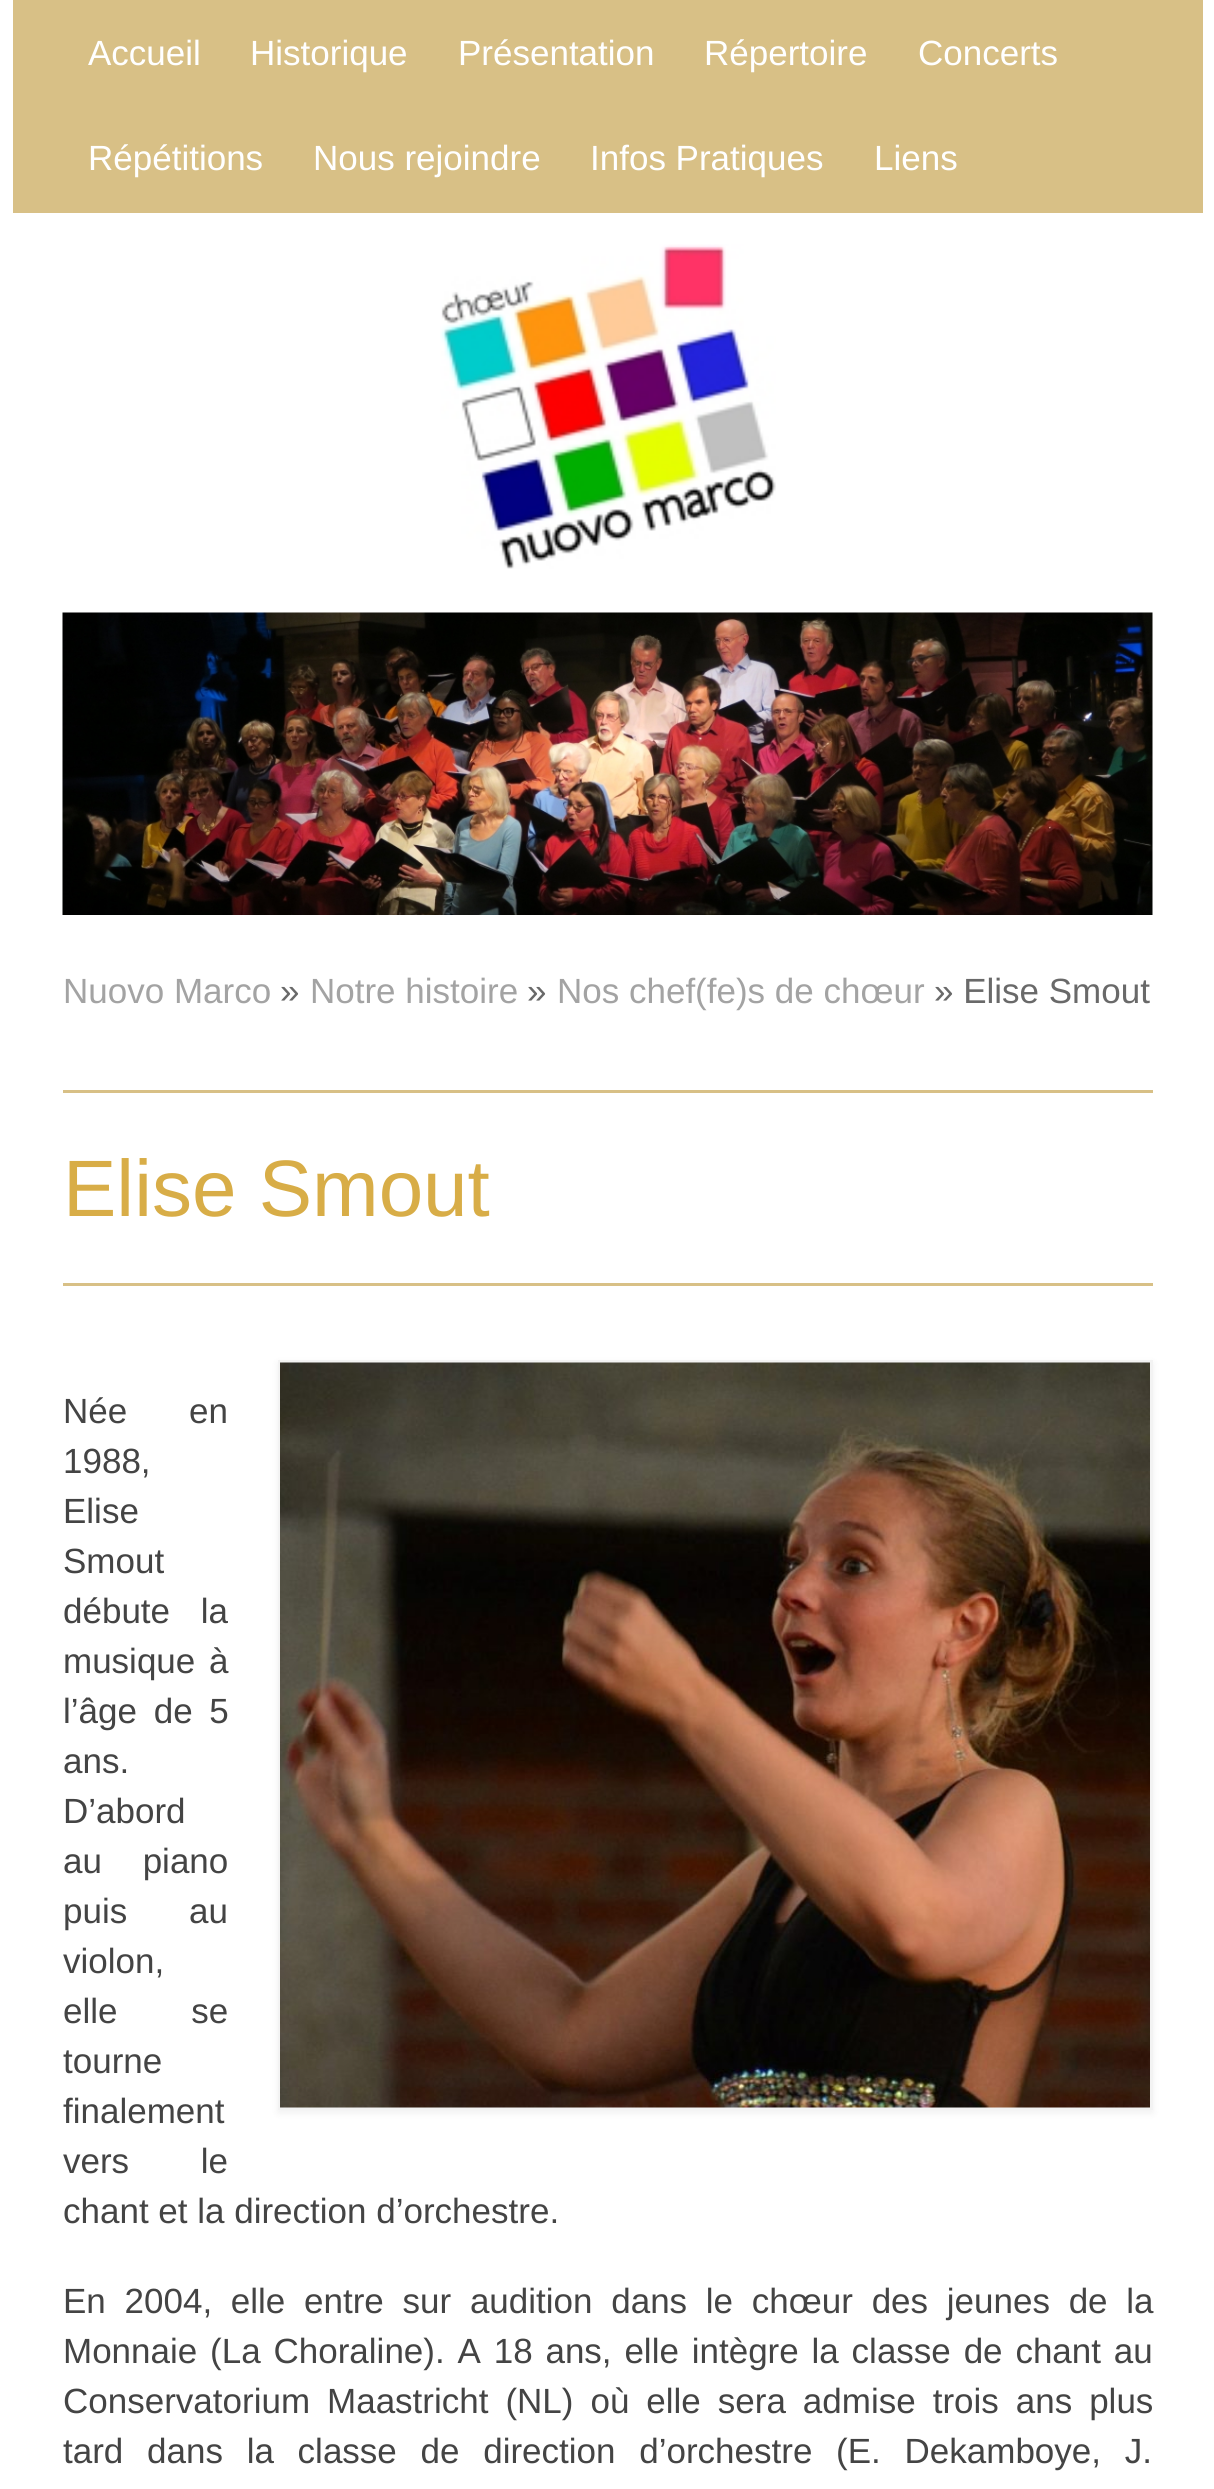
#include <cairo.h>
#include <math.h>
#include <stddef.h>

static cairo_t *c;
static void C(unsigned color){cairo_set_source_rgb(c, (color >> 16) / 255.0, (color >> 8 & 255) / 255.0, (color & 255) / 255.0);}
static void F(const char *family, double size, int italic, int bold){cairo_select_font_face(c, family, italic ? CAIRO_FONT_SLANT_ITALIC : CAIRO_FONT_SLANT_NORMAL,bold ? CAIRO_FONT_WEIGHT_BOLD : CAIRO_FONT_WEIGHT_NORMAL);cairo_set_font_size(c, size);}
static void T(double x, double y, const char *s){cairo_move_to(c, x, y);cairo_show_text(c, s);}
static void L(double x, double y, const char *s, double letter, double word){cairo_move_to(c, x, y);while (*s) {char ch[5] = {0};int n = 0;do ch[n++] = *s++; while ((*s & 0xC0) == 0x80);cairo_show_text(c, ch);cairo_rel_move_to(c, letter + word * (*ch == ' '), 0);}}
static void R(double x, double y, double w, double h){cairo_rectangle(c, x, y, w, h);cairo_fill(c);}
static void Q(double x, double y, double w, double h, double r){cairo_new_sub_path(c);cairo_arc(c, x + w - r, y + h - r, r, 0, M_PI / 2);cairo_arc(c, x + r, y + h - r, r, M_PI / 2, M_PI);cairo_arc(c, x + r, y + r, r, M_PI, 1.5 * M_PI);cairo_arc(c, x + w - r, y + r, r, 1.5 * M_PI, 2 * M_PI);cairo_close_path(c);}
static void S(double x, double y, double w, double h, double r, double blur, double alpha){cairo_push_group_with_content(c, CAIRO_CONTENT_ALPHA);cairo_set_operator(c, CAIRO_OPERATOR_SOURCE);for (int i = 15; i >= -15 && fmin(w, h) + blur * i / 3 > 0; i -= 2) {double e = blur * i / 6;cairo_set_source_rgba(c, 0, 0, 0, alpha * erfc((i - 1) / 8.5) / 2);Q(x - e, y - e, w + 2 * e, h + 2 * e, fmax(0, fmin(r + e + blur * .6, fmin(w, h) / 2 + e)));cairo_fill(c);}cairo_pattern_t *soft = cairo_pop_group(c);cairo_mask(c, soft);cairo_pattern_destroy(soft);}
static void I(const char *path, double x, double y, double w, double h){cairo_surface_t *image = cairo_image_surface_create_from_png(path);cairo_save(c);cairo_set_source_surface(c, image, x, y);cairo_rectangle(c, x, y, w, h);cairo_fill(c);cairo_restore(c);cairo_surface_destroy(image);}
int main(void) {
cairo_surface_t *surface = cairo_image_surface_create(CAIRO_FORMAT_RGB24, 1214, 2489);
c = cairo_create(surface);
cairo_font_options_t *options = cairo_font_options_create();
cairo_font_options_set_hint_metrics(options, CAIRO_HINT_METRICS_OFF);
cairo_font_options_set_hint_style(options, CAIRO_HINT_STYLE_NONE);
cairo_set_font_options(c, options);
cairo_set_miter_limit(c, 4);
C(0xffffff);
cairo_paint(c);
C(0xd8c086);
R(13,0,1190,213);
F("Liberation Sans",35,0,0);
C(0xffffff);
T(88,65,"Accueil");
T(250,65,"Historique");
T(458,65,"Présentation");
T(704,65,"Répertoire");
T(918,65,"Concerts");
T(88,170,"Répétitions");
T(313,170,"Nous rejoindre");
T(590,170,"Infos Pratiques");
T(874,170,"Liens");
I("1.png",440,244,336,325);
I("2.png",62,612,1091,303);
C(0xa3a3a3);
T(63,1003,"Nuovo Marco");
C(0x696969);
T(280,1003,"»");
C(0xa3a3a3);
T(310,1003,"Notre histoire");
C(0x696969);
T(527,1003,"»");
C(0xa3a3a3);
T(557,1003,"Nos chef(fe)s de chœur");
C(0x696969);
T(934,1003,"» Elise Smout");
C(0xd8c086);
R(63,1090,1090,3);
R(63,1283,1090,3);
F("Liberation Sans",80,0,0);
C(0xd8ad47);
T(63,1216,"Elise Smout");
F("Liberation Sans",35,0,0);
C(0x444444);
L(63,1423,"Née en",0,52);
cairo_save(c);
cairo_set_fill_rule(c,CAIRO_FILL_RULE_EVEN_ODD);
cairo_new_path(c);
cairo_move_to(c,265,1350);
cairo_line_to(c,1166,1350);
cairo_line_to(c,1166,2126);
cairo_line_to(c,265,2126);
cairo_close_path(c);
cairo_move_to(c,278,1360);
cairo_line_to(c,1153,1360);
cairo_line_to(c,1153,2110);
cairo_line_to(c,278,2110);
cairo_close_path(c);
cairo_clip(c);
C(0x000000);
S(278,1363,875,750,0,4,.06);
cairo_restore(c);
cairo_rectangle(c,279.5,1361.5,872,747);
cairo_set_source_rgba(c,0,0,0,0.05);
cairo_set_line_width(c,3);
cairo_stroke(c);
I("3.png",280,1362,870,746);
C(0x444444);
T(63,1473,"1988,");
T(63,1523,"Elise");
T(63,1573,"Smout");
L(63,1623,"débute la",0,21);
L(63,1673,"musique à",0,4);
L(63,1723,"l’âge de 5",0,7);
T(63,1773,"ans.");
T(63,1823,"D’abord");
L(63,1873,"au piano",0,31);
L(63,1923,"puis au",0,52);
T(63,1973,"violon,");
L(63,2023,"elle se",0,64);
T(63,2073,"tourne");
T(63,2123,"finalement");
L(63,2173,"vers le",0,62);
T(63,2223,"chant et la direction d’orchestre.");
L(63,2313,"En 2004, elle entre sur audition dans le chœur des jeunes de la",0,9);
L(63,2363,"Monnaie (La Choraline). A 18 ans, elle intègre la classe de chant au",0,3.1);
L(63,2413,"Conservatorium Maastricht (NL) où elle sera admise trois ans plus",0,7.25);
L(63,2463,"tard dans la classe de direction d’orchestre (E. Dekamboye, J.",0,14);
cairo_surface_write_to_png(surface, "o.png");
cairo_font_options_destroy(options);
cairo_destroy(c);
cairo_surface_destroy(surface);
return 0;
}
